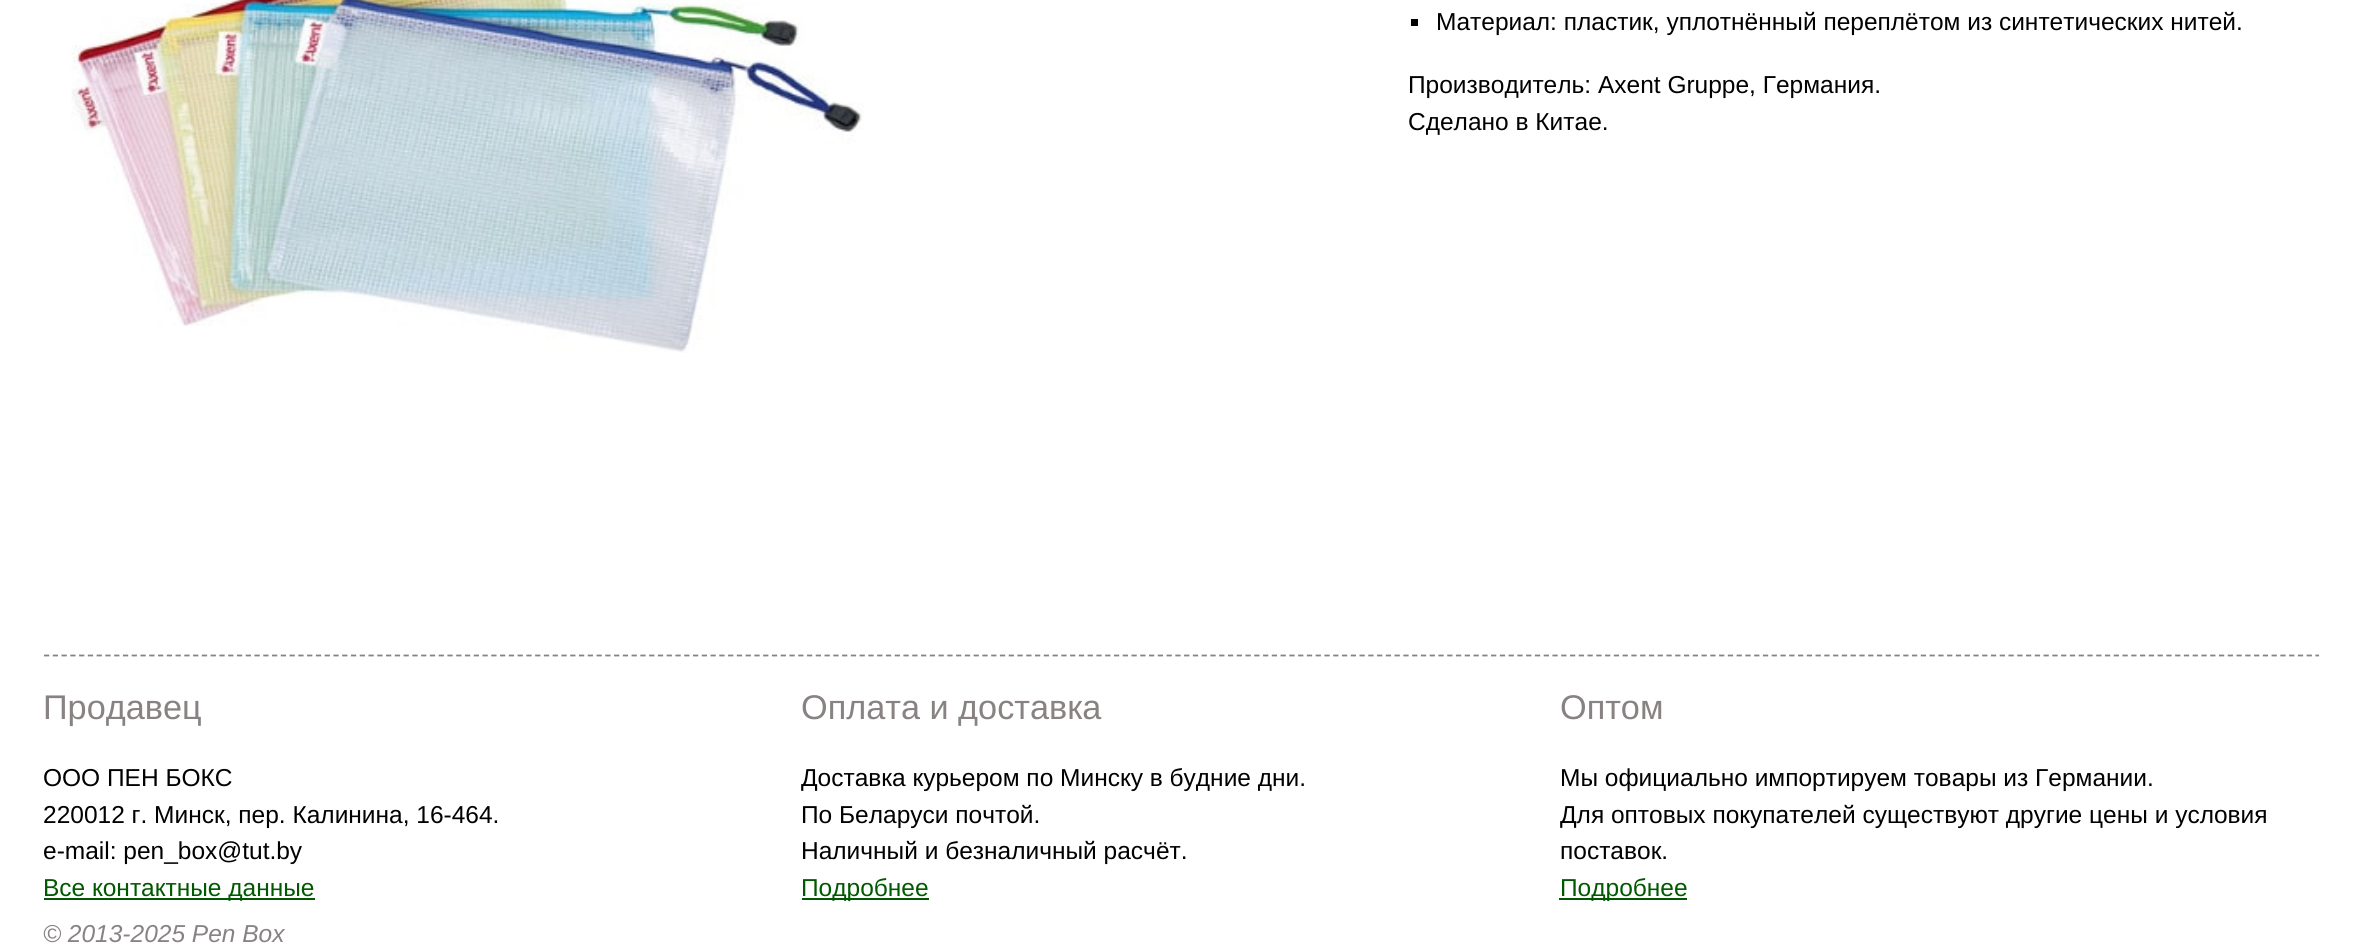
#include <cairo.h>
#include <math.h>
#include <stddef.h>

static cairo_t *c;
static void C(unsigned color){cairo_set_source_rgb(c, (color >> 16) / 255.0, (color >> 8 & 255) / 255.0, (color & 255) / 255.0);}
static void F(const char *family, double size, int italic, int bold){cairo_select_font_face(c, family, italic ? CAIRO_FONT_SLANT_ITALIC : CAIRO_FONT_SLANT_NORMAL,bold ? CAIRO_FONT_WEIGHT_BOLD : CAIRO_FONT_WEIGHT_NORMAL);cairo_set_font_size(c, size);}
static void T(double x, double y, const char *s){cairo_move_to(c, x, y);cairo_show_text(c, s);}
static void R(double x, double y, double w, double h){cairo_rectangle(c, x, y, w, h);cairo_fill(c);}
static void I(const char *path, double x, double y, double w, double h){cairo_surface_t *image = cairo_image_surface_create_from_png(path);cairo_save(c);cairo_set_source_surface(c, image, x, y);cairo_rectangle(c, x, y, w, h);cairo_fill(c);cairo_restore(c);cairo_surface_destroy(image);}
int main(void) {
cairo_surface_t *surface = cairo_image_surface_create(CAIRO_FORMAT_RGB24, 2360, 951);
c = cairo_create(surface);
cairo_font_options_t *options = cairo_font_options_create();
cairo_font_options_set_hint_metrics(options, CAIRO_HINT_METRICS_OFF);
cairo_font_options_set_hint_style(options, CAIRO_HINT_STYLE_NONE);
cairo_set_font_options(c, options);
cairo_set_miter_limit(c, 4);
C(0xffffff);
cairo_paint(c);
I("1.png",71,0,793,353);
C(0x000000);
R(1411,19,7,7);
F("Liberation Sans",24.5,0,0);
T(1436,30,"Материал: пластик, уплотнённый переплётом из синтетических нитей.");
T(1408,93,"Производитель: Axent Gruppe, Германия.");
T(1408,130,"Сделано в Китае.");
cairo_new_path(c);
cairo_move_to(c,44,655.5);
cairo_line_to(c,2319,655.5);
C(0x888282);
cairo_set_line_width(c,1.8);
cairo_set_dash(c,(double[]){5.25,3.52},2,0);
cairo_stroke(c);
F("Liberation Sans",34.25,0,0);
T(43,719,"Продавец");
F("Liberation Sans",24.5,0,0);
C(0x000000);
T(43,786,"ООО ПЕН БОКС");
T(43,823,"220012 г. Минск, пер. Калинина, 16-464.");
T(43,859,"e-mail: pen_box@tut.by");
C(0x005900);
R(44,898,271,2);
T(43,896,"Все контактные данные");
F("Liberation Sans",34.25,0,0);
C(0x888282);
T(801,719,"Оплата и доставка");
F("Liberation Sans",24.5,0,0);
C(0x000000);
T(801,786,"Доставка курьером по Минску в будние дни.");
T(801,823,"По Беларуси почтой.");
T(801,859,"Наличный и безналичный расчёт.");
C(0x005900);
R(802,898,127,2);
T(801,896,"Подробнее");
F("Liberation Sans",34.25,0,0);
C(0x888282);
T(1560,719,"Оптом");
F("Liberation Sans",24.5,0,0);
C(0x000000);
T(1560,786,"Мы официально импортируем товары из Германии.");
T(1560,823,"Для оптовых покупателей существуют другие цены и условия");
T(1560,859,"поставок.");
C(0x005900);
R(1559,898,128,2);
T(1560,896,"Подробнее");
F("Liberation Sans",24.5,1,0);
C(0x888282);
T(43,942,"© 2013-2025 Pen Box");
cairo_surface_write_to_png(surface, "o.png");
cairo_font_options_destroy(options);
cairo_destroy(c);
cairo_surface_destroy(surface);
return 0;
}
